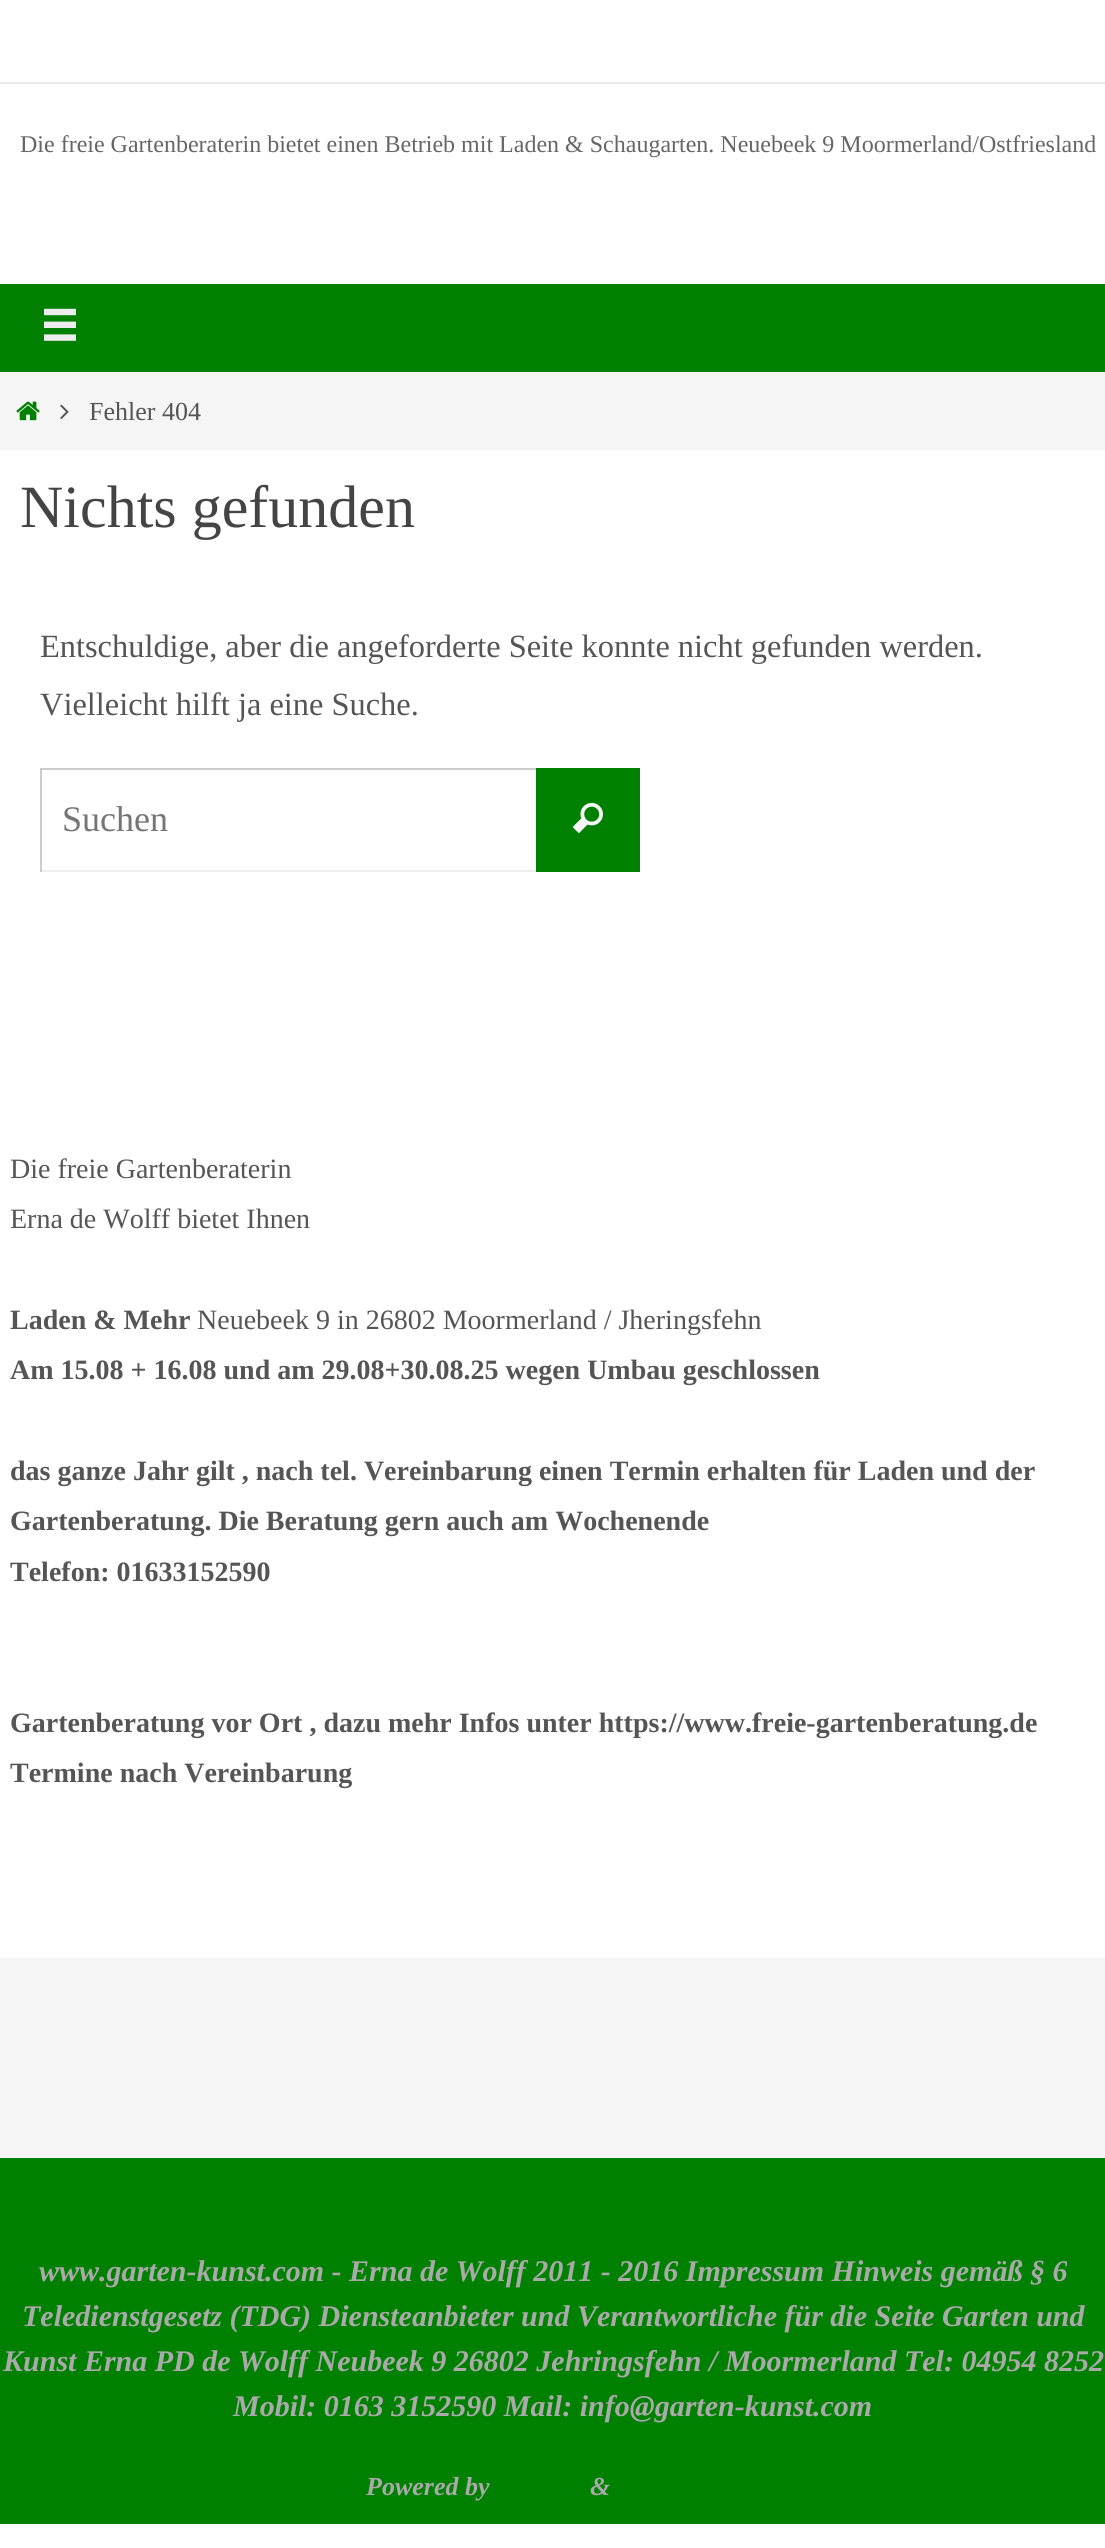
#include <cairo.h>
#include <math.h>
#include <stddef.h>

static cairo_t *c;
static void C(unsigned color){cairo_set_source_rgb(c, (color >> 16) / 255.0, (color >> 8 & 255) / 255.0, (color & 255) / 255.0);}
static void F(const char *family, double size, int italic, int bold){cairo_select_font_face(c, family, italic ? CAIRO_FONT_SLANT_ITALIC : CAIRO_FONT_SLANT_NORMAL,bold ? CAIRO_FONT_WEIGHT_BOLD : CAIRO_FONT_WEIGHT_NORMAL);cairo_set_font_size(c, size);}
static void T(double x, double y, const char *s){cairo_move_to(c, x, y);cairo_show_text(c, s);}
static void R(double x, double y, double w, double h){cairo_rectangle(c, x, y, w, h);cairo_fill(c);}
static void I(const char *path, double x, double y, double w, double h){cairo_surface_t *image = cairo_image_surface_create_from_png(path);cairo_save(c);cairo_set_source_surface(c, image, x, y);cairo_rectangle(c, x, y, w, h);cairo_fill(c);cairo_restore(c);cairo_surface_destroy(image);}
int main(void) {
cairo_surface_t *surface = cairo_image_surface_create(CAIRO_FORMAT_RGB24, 1105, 2548);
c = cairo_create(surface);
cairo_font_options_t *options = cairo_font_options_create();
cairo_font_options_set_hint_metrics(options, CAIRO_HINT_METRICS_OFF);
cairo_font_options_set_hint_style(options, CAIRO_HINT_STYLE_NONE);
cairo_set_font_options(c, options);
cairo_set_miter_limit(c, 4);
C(0xffffff);
cairo_paint(c);
C(0xebebeb);
R(0,82,1105,2);
F("Liberation Serif",24,0,0);
C(0x666666);
T(20,152,"Die freie Gartenberaterin bietet einen Betrieb mit Laden & Schaugarten. Neuebeek 9 Moormerland/Ostfriesland");
C(0x008000);
R(0,284,1105,88);
I("1.png",44,308,32,33);
C(0xf5f5f5);
R(0,372,1105,78);
I("2.png",16,401,24,20);
I("3.png",60,404,9,15);
F("Liberation Serif",26,0,0);
C(0x555555);
T(89,420,"Fehler 404");
F("Liberation Serif",60,0,0);
C(0x444444);
T(20,527,"Nichts gefunden");
F("Liberation Serif",32.4,0,0);
C(0x555555);
T(40,657,"Entschuldige, aber die angeforderte Seite konnte nicht gefunden werden.");
T(40,715,"Vielleicht hilft ja eine Suche.");
C(0x008000);
R(536,768,104,104);
C(0xcccccc);
R(40,768,496,2);
C(0xeeeeee);
R(40,870,496,2);
C(0xcccccc);
R(40,768,2,104);
F("Liberation Serif",36,0,0);
C(0x757575);
T(62,831,"Suchen");
I("4.png",572,802,31,32);
F("Liberation Serif",28,0,0);
C(0x555555);
T(10,1178,"Die freie Gartenberaterin");
T(10,1228,"Erna de Wolff bietet Ihnen");
F("Liberation Serif",28,0,1);
T(10,1329,"Laden & Mehr");
F("Liberation Serif",28,0,0);
T(197,1329,"Neuebeek 9 in 26802 Moormerland / Jheringsfehn");
F("Liberation Serif",28,0,1);
T(10,1379,"Am 15.08 + 16.08 und am 29.08+30.08.25 wegen Umbau geschlossen");
T(10,1480,"das ganze Jahr gilt , nach tel. Vereinbarung einen Termin erhalten für Laden und der");
T(10,1530,"Gartenberatung. Die Beratung gern auch am Wochenende");
T(10,1581,"Telefon: 01633152590");
T(10,1732,"Gartenberatung vor Ort , dazu mehr Infos unter https://www.freie-gartenberatung.de");
T(10,1782,"Termine nach Vereinbarung");
C(0xf5f5f5);
R(0,1958,1105,200);
C(0x008000);
R(0,2158,1105,366);
F("Liberation Serif",30,1,1);
C(0xaaaaaa);
T(39,2281,"www.garten-kunst.com - Erna de Wolff 2011 - 2016 Impressum Hinweis gemäß § 6");
T(22,2326,"Teledienstgesetz (TDG) Diensteanbieter und Verantwortliche für die Seite Garten und");
T(3,2371,"Kunst Erna PD de Wolff Neubeek 9 26802 Jehringsfehn / Moormerland Tel: 04954 8252");
T(233,2416,"Mobil: 0163 3152590 Mail: info@garten-kunst.com");
F("Liberation Serif",26,1,1);
T(366,2495,"Powered by");
T(590,2495,"&");
cairo_surface_write_to_png(surface, "o.png");
cairo_font_options_destroy(options);
cairo_destroy(c);
cairo_surface_destroy(surface);
return 0;
}
